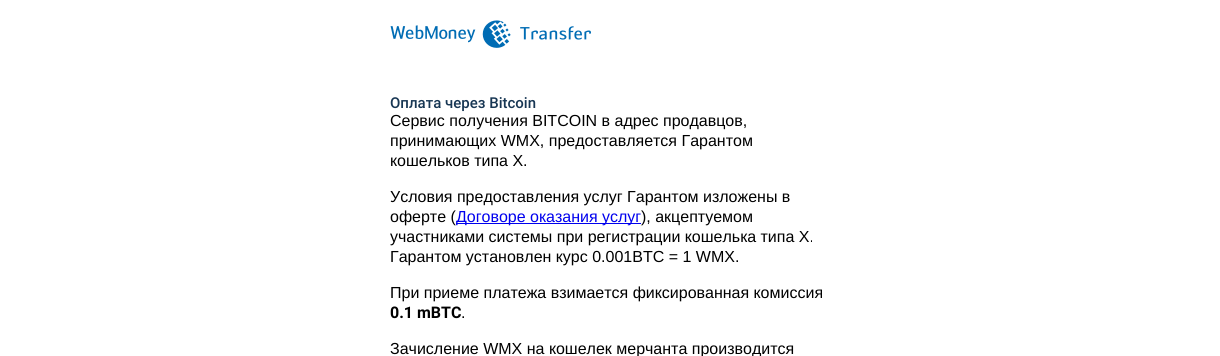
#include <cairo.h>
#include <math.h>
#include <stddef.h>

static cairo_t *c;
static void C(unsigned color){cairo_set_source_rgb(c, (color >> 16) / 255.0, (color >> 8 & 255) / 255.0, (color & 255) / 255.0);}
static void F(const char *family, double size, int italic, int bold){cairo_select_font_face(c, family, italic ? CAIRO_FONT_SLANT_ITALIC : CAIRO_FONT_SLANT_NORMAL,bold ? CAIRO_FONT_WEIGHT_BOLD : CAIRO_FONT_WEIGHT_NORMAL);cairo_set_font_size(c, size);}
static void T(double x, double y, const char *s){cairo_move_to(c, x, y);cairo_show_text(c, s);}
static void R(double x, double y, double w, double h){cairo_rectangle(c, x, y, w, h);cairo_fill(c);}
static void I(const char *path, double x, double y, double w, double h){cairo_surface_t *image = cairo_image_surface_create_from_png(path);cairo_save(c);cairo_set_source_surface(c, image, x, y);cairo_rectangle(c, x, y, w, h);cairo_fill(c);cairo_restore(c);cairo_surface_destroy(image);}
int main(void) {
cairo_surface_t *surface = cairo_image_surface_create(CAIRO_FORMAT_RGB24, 1220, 356);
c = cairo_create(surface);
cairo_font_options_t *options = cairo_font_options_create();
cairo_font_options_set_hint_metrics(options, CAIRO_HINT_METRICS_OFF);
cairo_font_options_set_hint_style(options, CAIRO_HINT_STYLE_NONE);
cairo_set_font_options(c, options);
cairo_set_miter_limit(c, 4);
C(0xffffff);
cairo_paint(c);
I("1.png",390,20,201,28);
F("Roboto Medium",15,0,0);
C(0x173653);
T(390,108,"Оплата через Bitcoin");
F("Liberation Sans",16,0,0);
C(0x000000);
T(390,126,"Сервис получения BITCOIN в адрес продавцов,");
T(390,146,"принимающих WMX, предоставляется Гарантом");
T(390,166,"кошельков типа X.");
T(390,202,"Условия предоставления услуг Гарантом изложены в");
T(390,222,"оферте (");
C(0x0000ee);
R(456,223,185,1);
T(456,222,"Договоре оказания услуг");
C(0x000000);
T(641,222,"), акцептуемом");
T(390,242,"участниками системы при регистрации кошелька типа X.");
T(390,262,"Гарантом установлен курс 0.001BTC = 1 WMX.");
T(390,298,"При приеме платежа взимается фиксированная комиссия");
F("Roboto",16,0,1);
T(390,318,"0.1 mBTC");
F("Liberation Sans",16,0,0);
T(461,318,".");
T(390,354,"Зачисление WMX на кошелек мерчанта производится");
cairo_surface_write_to_png(surface, "o.png");
cairo_font_options_destroy(options);
cairo_destroy(c);
cairo_surface_destroy(surface);
return 0;
}
